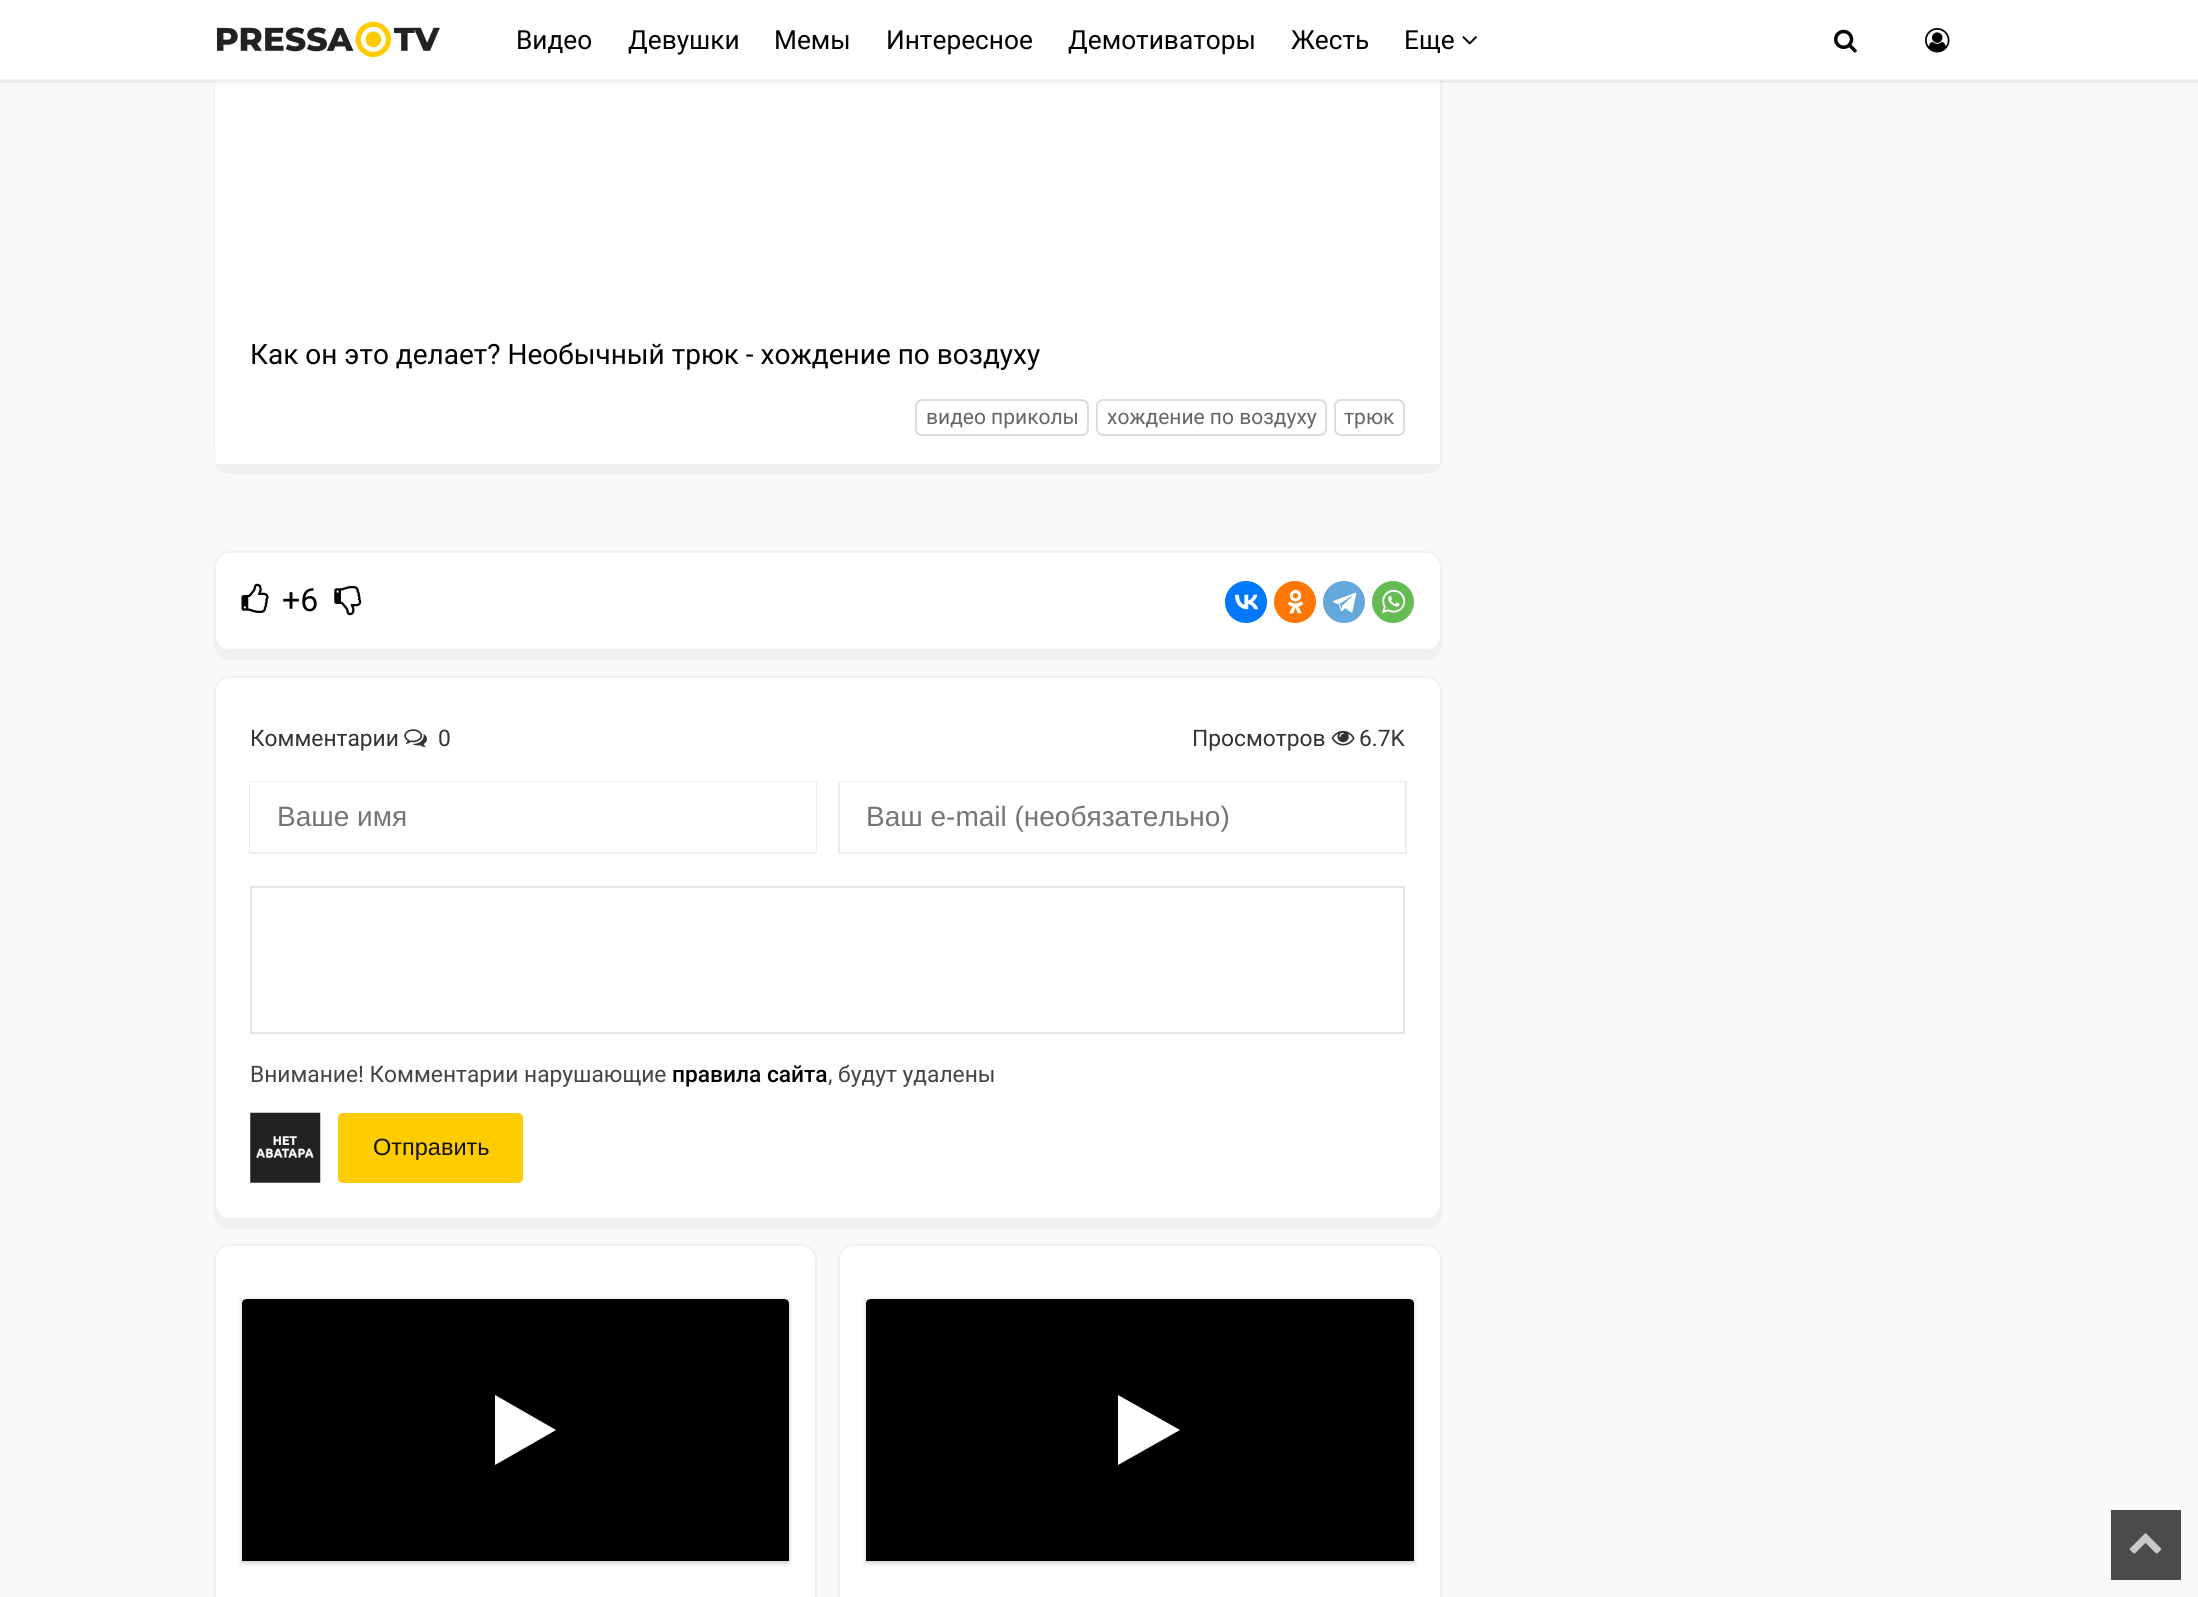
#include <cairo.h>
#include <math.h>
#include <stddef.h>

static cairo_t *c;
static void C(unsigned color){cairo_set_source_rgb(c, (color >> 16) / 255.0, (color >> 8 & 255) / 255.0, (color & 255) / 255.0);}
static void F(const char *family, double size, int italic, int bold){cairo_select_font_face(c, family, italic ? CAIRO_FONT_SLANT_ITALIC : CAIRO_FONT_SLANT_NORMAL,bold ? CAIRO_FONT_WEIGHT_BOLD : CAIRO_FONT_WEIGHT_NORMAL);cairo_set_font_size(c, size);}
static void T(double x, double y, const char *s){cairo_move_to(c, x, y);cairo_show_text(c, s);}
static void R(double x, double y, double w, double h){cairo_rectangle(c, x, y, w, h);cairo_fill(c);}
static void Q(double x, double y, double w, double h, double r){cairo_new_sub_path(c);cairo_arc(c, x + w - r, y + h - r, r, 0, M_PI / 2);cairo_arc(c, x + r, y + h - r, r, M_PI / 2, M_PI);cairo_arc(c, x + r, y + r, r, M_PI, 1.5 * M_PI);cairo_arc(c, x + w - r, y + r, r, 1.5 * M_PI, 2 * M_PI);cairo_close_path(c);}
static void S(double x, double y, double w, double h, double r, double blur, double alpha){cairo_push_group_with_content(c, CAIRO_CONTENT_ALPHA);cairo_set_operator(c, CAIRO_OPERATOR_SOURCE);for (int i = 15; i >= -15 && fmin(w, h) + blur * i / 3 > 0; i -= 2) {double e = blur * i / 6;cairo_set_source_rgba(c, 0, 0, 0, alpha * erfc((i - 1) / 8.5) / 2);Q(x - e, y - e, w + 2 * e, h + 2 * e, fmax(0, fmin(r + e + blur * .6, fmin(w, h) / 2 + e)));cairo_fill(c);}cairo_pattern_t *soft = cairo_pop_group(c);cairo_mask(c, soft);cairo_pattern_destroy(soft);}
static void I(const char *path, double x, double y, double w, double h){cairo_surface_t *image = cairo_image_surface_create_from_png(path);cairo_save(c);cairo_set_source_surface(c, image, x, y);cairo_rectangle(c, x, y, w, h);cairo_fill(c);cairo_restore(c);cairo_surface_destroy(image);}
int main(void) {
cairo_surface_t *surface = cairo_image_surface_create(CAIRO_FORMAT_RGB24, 2198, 1597);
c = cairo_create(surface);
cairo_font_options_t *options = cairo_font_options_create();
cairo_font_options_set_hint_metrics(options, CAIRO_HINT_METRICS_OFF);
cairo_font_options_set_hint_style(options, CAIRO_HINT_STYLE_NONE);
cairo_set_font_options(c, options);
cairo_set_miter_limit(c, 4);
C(0xf9f9f9);
cairo_paint(c);
C(0xf0f0f0);
cairo_new_path(c);
cairo_move_to(c,214,454);
cairo_line_to(c,214,458);
cairo_curve_to(c,214,467,221,474,230,474);
cairo_line_to(c,1426,474);
cairo_curve_to(c,1435,474,1442,467,1442,458);
cairo_line_to(c,1442,450);
cairo_curve_to(c,1442,458,1435,466,1426,466);
cairo_line_to(c,229,466);
cairo_curve_to(c,222,466,216,460,214,454);
cairo_close_path(c);
cairo_fill(c);
Q(215,-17,1226,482,15);
cairo_stroke(c);
C(0xffffff);
R(215,81,1225,383);
C(0x000000);
S(0,2,2198,80,0,1,.1);
C(0xffffff);
R(0,0,2198,79);
C(0xf0f0f0);
R(0,79,2198,2);
I("1.png",217,21,223,37);
F("Roboto",26.25,0,0);
C(0x020202);
T(516,49,"Видео");
T(628,49,"Девушки");
T(774,49,"Мемы");
T(886,49,"Интересное");
T(1068,49,"Демотиваторы");
T(1291,49,"Жесть");
T(1404,49,"Еще");
I("2.png",1462,36,15,9);
I("3.png",1834,29,23,24);
I("4.png",1925,28,25,25);
F("Roboto",28,0,0);
T(250,364,"Как он это делает? Необычный трюк - хождение по воздуху");
Q(916,400,172,35,6);
C(0xdcdcdc);
cairo_stroke(c);
F("Roboto",21,0,0);
C(0x666666);
T(926,424,"видео приколы");
Q(1097,400,229,35,6);
C(0xdcdcdc);
cairo_stroke(c);
C(0x666666);
T(1107,424,"хождение по воздуху");
Q(1335,400,69,35,6);
C(0xdcdcdc);
cairo_stroke(c);
C(0x666666);
T(1344,424,"трюк");
C(0xf0f0f0);
cairo_new_path(c);
cairo_move_to(c,214,639);
cairo_line_to(c,214,644);
cairo_curve_to(c,214,653,221,660,230,660);
cairo_line_to(c,1426,660);
cairo_curve_to(c,1435,660,1442,653,1442,644);
cairo_line_to(c,1442,635);
cairo_curve_to(c,1442,644,1435,651,1426,651);
cairo_line_to(c,229,651);
cairo_curve_to(c,222,651,216,646,214,639);
cairo_close_path(c);
cairo_fill(c);
C(0xffffff);
Q(215,552,1226,98,15);
cairo_fill_preserve(c);
C(0xf0f0f0);
cairo_stroke(c);
I("5.png",241,583,28,30);
F("Roboto",32,0,0);
C(0x020202);
T(282,611,"+6");
I("6.png",334,586,28,30);
C(0x0077ff);
cairo_arc(c,1246,602,21,0,2 * M_PI);
cairo_fill(c);
I("7.png",1234,594,25,16);
C(0xff7700);
cairo_arc(c,1295,602,21,0,2 * M_PI);
cairo_fill(c);
I("8.png",1287,589,17,25);
C(0x64a9dc);
cairo_arc(c,1344,602,21,0,2 * M_PI);
cairo_fill(c);
I("9.png",1332,592,25,21);
C(0x65bc54);
cairo_arc(c,1393,602,21,0,2 * M_PI);
cairo_fill(c);
I("10.png",1381,589,25,25);
C(0xf0f0f0);
cairo_new_path(c);
cairo_move_to(c,214,1208);
cairo_line_to(c,214,1213);
cairo_curve_to(c,214,1222,221,1229,230,1229);
cairo_line_to(c,1426,1229);
cairo_curve_to(c,1435,1229,1442,1222,1442,1213);
cairo_line_to(c,1442,1204);
cairo_curve_to(c,1442,1213,1435,1220,1426,1220);
cairo_line_to(c,229,1220);
cairo_curve_to(c,222,1220,216,1215,214,1208);
cairo_close_path(c);
cairo_fill(c);
C(0xffffff);
Q(215,677,1226,542,15);
cairo_fill_preserve(c);
C(0xf0f0f0);
cairo_stroke(c);
F("Roboto",22.75,0,0);
C(0x333333);
T(250,746,"Комментарии");
I("11.png",404,729,23,19);
T(438,746,"0");
T(1192,746,"Просмотров");
I("12.png",1331,730,24,16);
T(1359,746,"6.7K");
cairo_rectangle(c,250,782,566,71);
C(0xededed);
cairo_stroke(c);
C(0xffffff);
R(250,782,566,70);
F("Liberation Sans",28,0,0);
C(0x757575);
T(277,826,"Ваше имя");
cairo_rectangle(c,839,782,567,71);
C(0xededed);
cairo_stroke(c);
C(0xffffff);
R(840,782,565,1);
C(0x757575);
T(866,826,"Ваш e-mail (необязательно)");
cairo_rectangle(c,251,887,1153,146);
C(0xe3e3e3);
cairo_stroke(c);
F("Roboto",22.75,0,0);
C(0x444444);
T(250,1082,"Внимание! Комментарии нарушающие");
F("Roboto Medium",22.75,0,0);
C(0x020202);
T(672,1082,"правила сайта");
F("Roboto",22.75,0,0);
C(0x444444);
T(828,1082,", будут удалены");
I("13.png",250,1112,71,71);
C(0xffcc00);
Q(338,1113,185,70,5);
cairo_fill(c);
F("Liberation Sans",23.5,0,0);
C(0x111111);
T(373,1155,"Отправить");
C(0xffffff);
Q(215,1245,601,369,15);
cairo_fill_preserve(c);
C(0xf0f0f0);
cairo_stroke(c);
C(0x000000);
S(242,1300,547,263,0,2.5,.2);
C(0x000000);
cairo_new_path(c);
cairo_move_to(c,247,1299);
cairo_line_to(c,784,1299);
cairo_curve_to(c,787,1299,789,1301,789,1304);
cairo_line_to(c,789,1561);
cairo_line_to(c,242,1561);
cairo_line_to(c,242,1304);
cairo_curve_to(c,242,1301,244,1299,247,1299);
cairo_close_path(c);
cairo_fill(c);
C(0xffffff);
cairo_new_path(c);
cairo_move_to(c,495,1465);
cairo_line_to(c,495,1395);
cairo_line_to(c,556,1430);
cairo_close_path(c);
cairo_fill(c);
Q(839,1245,602,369,15);
cairo_fill_preserve(c);
C(0xf0f0f0);
cairo_stroke(c);
C(0x000000);
S(866,1300,548,263,0,2.5,.2);
C(0x000000);
cairo_new_path(c);
cairo_move_to(c,871,1299);
cairo_line_to(c,1409,1299);
cairo_curve_to(c,1412,1299,1414,1301,1414,1304);
cairo_line_to(c,1414,1561);
cairo_line_to(c,866,1561);
cairo_line_to(c,866,1304);
cairo_curve_to(c,866,1301,868,1299,871,1299);
cairo_close_path(c);
cairo_fill(c);
C(0xffffff);
cairo_new_path(c);
cairo_move_to(c,1118,1465);
cairo_line_to(c,1118,1395);
cairo_line_to(c,1180,1430);
cairo_close_path(c);
cairo_fill(c);
C(0x4b4b4b);
R(2111,1510,70,70);
I("14.png",2129,1533,33,21);
cairo_surface_write_to_png(surface, "o.png");
cairo_font_options_destroy(options);
cairo_destroy(c);
cairo_surface_destroy(surface);
return 0;
}
